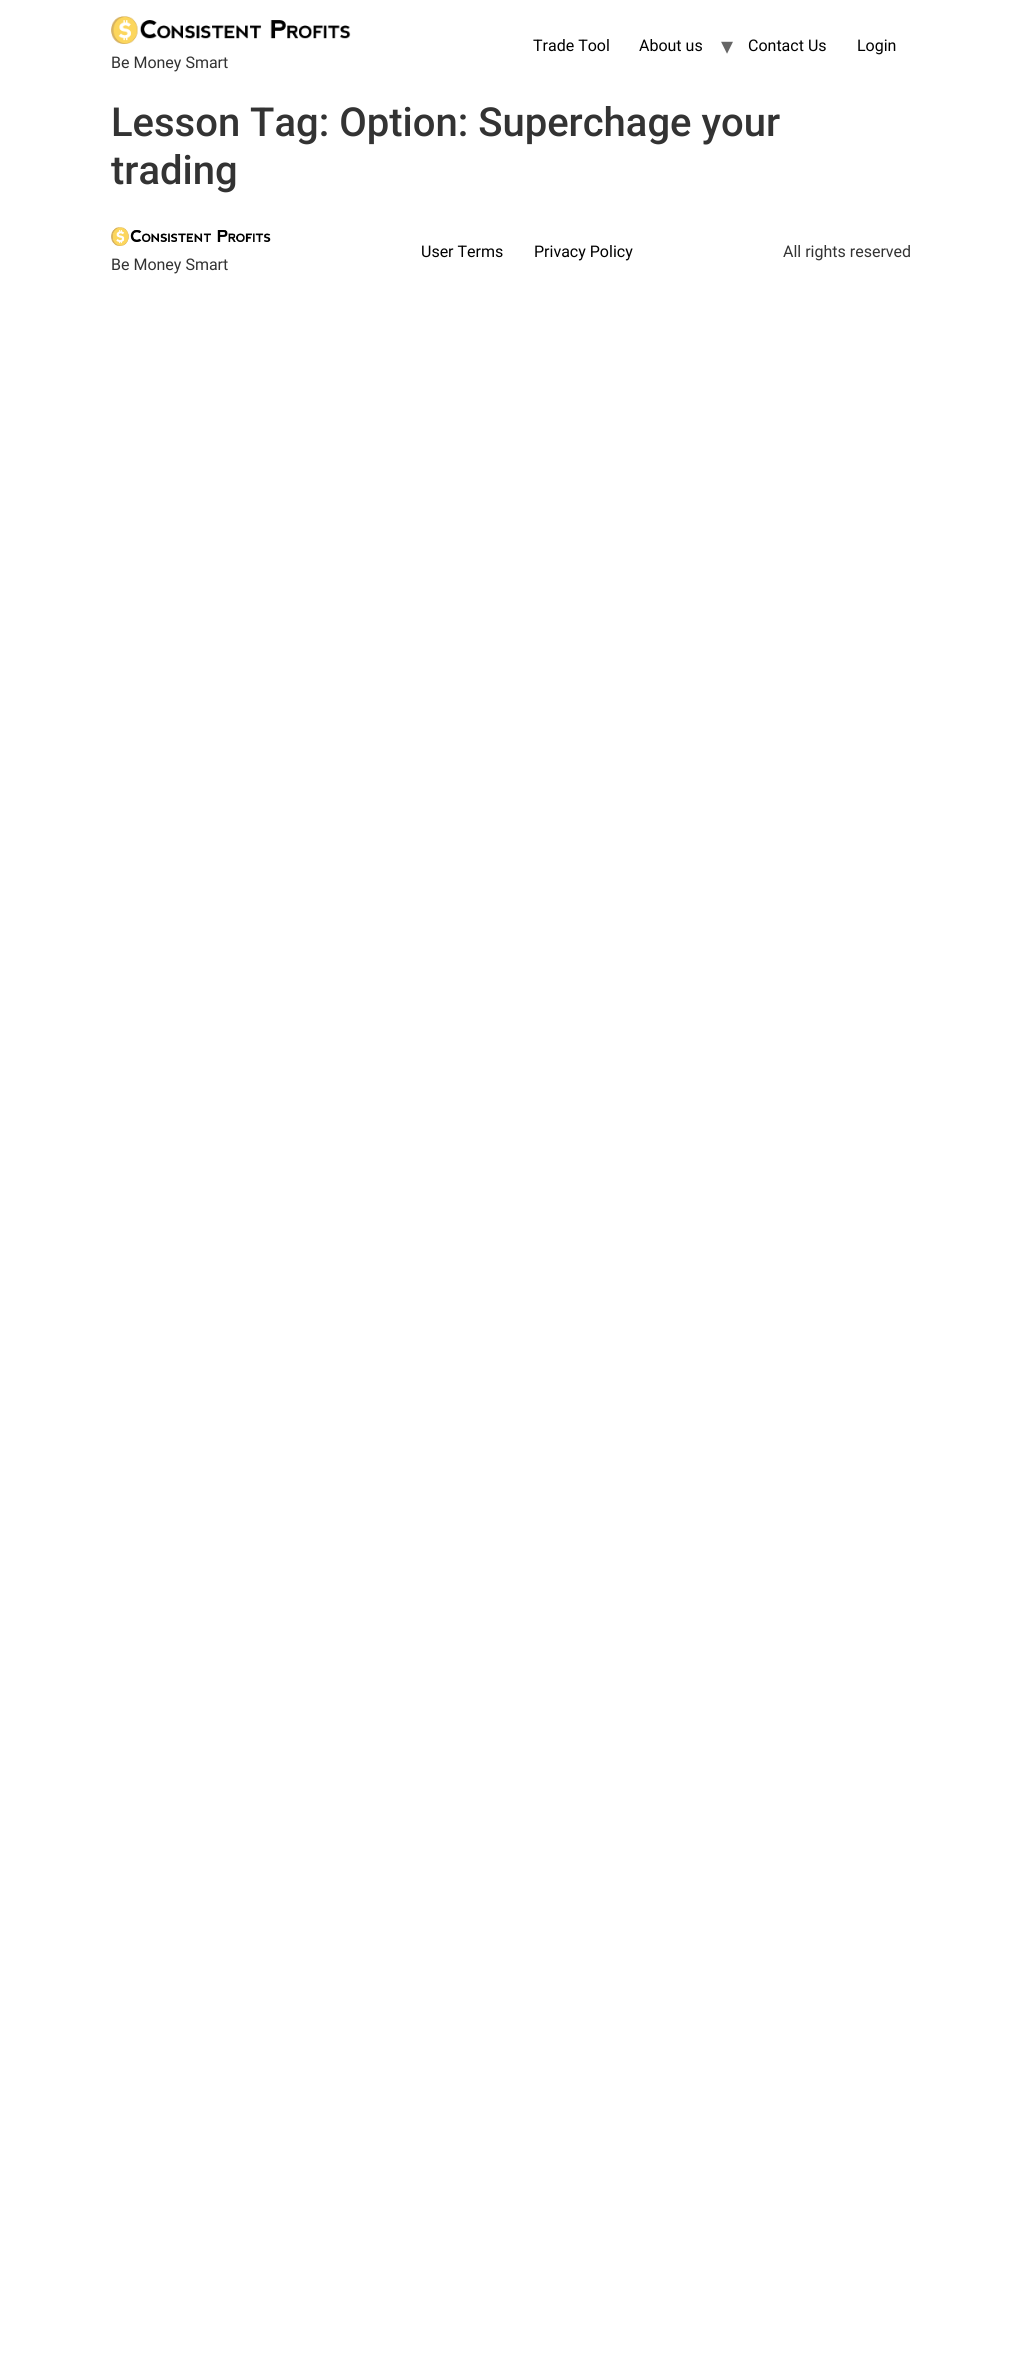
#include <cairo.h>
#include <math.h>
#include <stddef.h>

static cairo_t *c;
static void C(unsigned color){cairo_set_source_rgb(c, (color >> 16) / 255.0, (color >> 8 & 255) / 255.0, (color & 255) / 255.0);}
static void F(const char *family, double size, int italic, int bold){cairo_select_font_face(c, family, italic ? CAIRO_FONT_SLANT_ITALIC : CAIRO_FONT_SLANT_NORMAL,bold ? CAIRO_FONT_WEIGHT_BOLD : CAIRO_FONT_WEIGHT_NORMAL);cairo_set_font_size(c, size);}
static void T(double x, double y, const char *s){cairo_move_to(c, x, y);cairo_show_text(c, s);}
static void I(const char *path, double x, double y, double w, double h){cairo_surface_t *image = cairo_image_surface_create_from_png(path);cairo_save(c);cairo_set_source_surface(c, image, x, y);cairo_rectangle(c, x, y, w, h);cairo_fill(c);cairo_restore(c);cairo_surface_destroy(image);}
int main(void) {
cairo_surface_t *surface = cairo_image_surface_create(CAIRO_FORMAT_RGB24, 1022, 2357);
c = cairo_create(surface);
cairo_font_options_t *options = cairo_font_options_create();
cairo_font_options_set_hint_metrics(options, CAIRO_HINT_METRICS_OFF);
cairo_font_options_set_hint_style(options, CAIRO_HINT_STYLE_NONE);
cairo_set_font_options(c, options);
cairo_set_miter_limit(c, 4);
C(0xffffff);
cairo_paint(c);
F("Roboto",16,0,0);
C(0x000000);
T(533,51,"Trade Tool");
T(639,51,"About us");
F("DejaVu Sans",24,0,0);
C(0x666666);
T(721,54,"▾");
F("Roboto",16,0,0);
C(0x000000);
T(748,51,"Contact Us");
T(857,51,"Login");
I("1.png",111,16,240,28);
C(0x333333);
T(111,68,"Be Money Smart");
F("Roboto Medium",40,0,0);
T(111,136,"Lesson Tag: Option: Superchage your");
T(111,184,"trading");
F("Roboto",16,0,0);
C(0x000000);
T(421,257,"User Terms");
T(534,257,"Privacy Policy");
C(0x333333);
T(783,257,"All rights reserved");
I("2.png",111,227,160,19);
T(111,270,"Be Money Smart");
cairo_surface_write_to_png(surface, "o.png");
cairo_font_options_destroy(options);
cairo_destroy(c);
cairo_surface_destroy(surface);
return 0;
}
